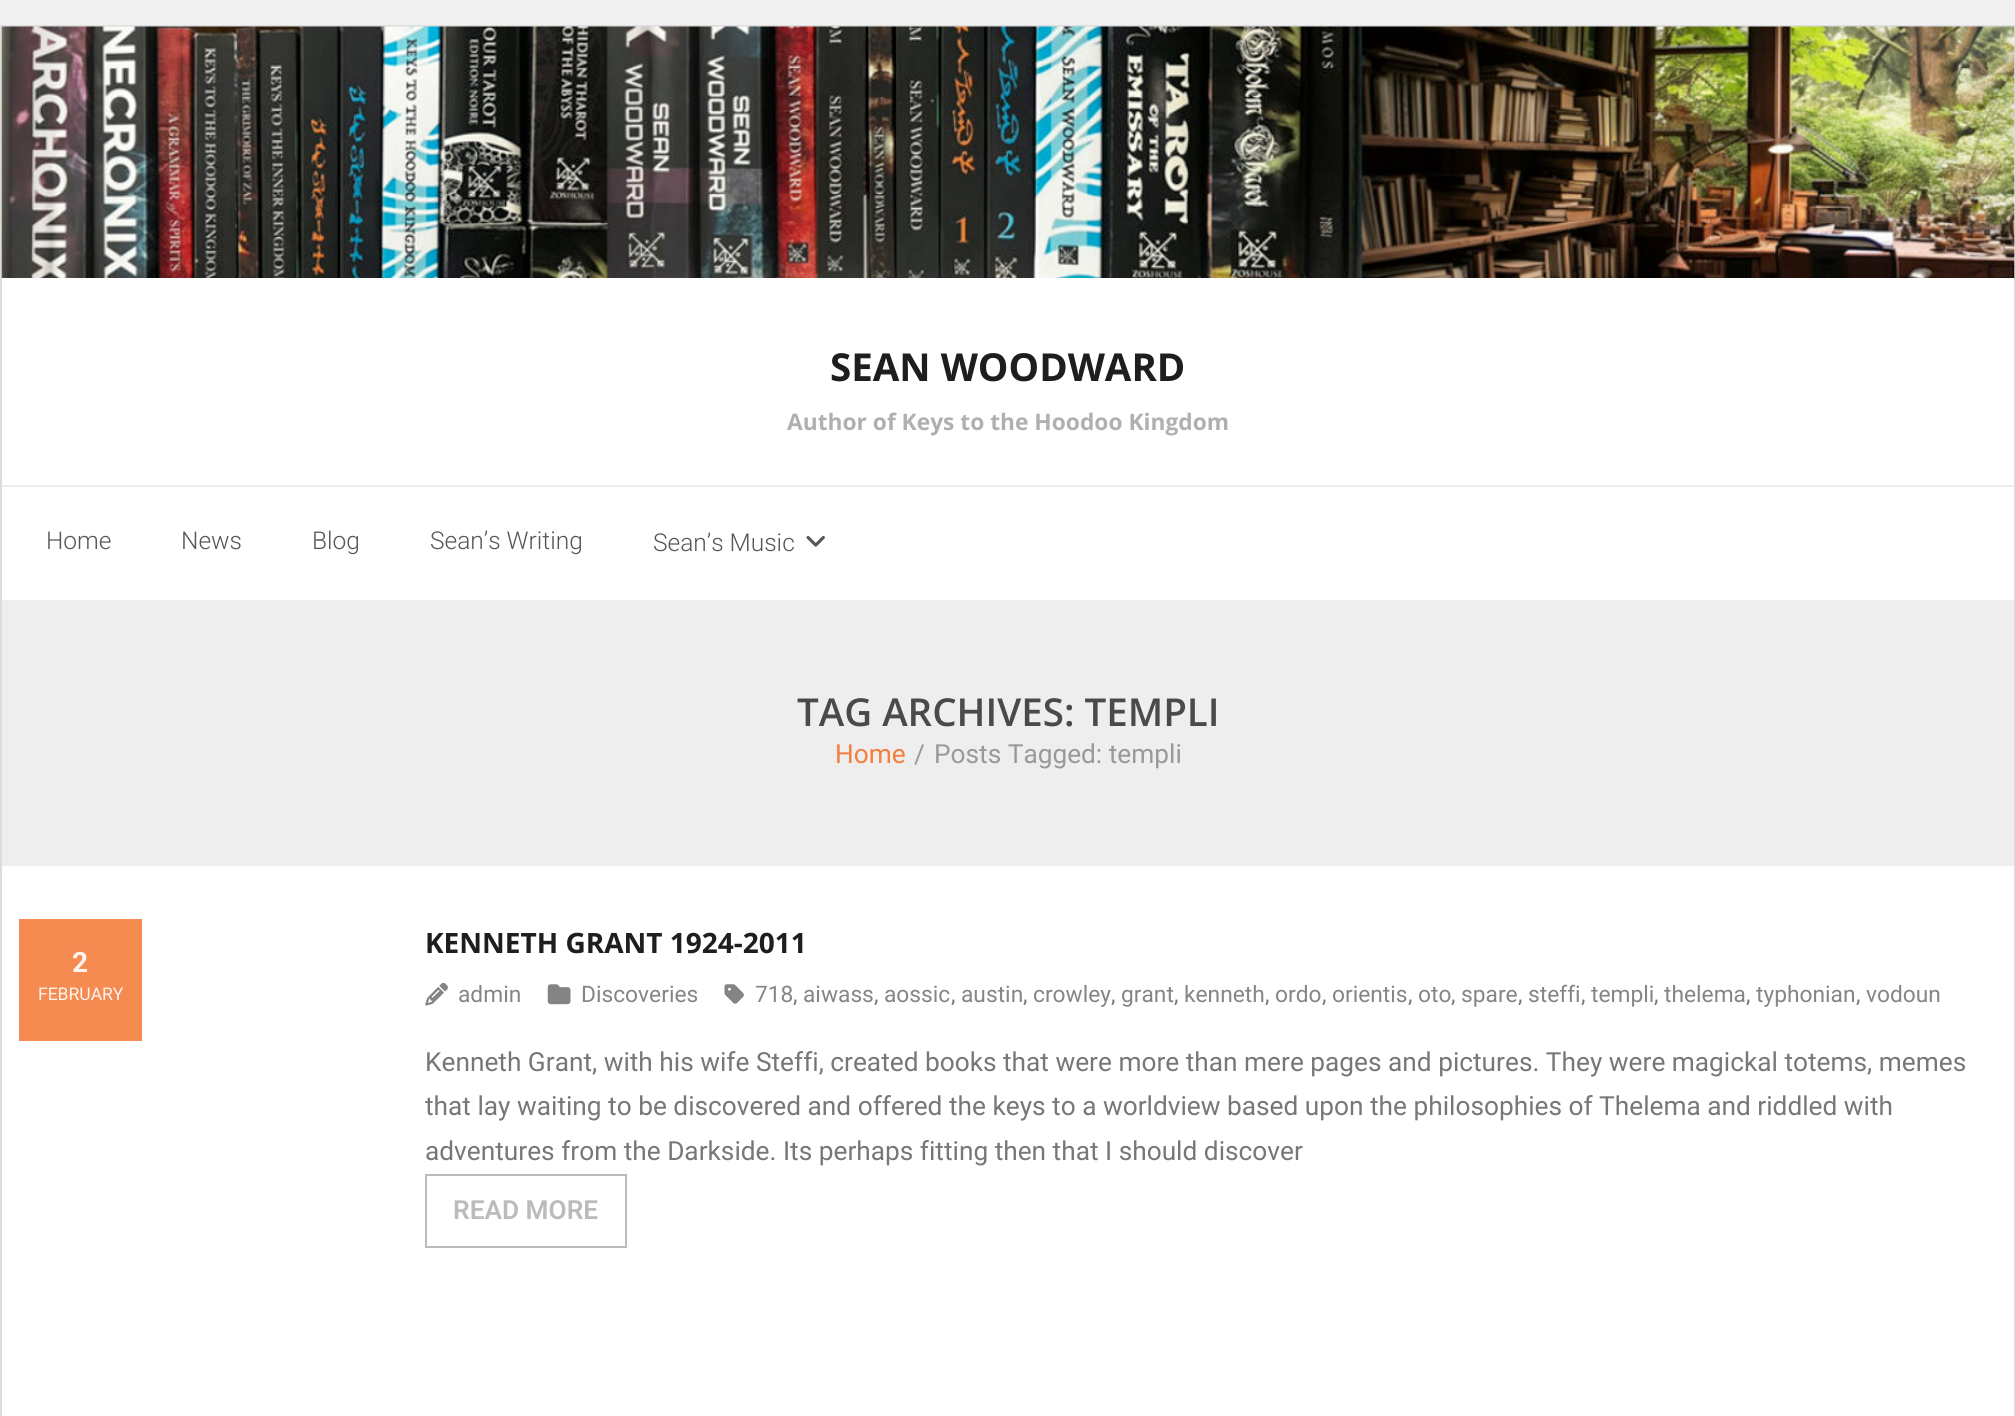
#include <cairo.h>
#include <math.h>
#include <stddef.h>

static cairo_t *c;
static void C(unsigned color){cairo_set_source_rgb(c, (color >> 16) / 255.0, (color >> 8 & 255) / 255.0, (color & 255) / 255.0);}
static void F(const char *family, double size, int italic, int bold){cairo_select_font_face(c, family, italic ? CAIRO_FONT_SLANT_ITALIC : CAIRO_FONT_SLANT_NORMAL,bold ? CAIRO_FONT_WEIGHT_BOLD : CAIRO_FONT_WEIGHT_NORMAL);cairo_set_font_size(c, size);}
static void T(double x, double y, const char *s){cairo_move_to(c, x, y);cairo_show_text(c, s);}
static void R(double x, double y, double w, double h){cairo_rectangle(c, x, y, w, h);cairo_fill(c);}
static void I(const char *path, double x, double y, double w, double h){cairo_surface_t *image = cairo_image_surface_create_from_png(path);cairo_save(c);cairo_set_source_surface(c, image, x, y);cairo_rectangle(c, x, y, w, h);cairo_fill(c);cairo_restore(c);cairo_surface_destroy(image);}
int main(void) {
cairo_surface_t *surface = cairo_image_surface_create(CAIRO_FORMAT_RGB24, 2015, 1416);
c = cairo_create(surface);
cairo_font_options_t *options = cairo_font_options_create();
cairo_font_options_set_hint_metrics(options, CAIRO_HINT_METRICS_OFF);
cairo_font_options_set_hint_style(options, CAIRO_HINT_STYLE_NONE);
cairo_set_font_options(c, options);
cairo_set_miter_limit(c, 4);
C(0xf1f1f1);
cairo_paint(c);
C(0xffffff);
R(2,866,2012,550);
cairo_rectangle(c,1,26,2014,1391);
C(0xdddddd);
cairo_stroke(c);
I("1.png",1,26,2014,253);
C(0xffffff);
R(2,278,2012,322);
F("Open Sans",38.5,0,1);
C(0x1e1e1e);
T(830,381,"SEAN WOODWARD");
F("Open Sans",22.75,0,1);
C(0xb0b0b0);
T(787,430,"Author of Keys to the Hoodoo Kingdom");
C(0xeeeeee);
R(2,485,2012,2);
F("Roboto Light",24.5,0,0);
C(0x555555);
T(46,549,"Home");
T(181,549,"News");
T(312,549,"Blog");
T(430,549,"Sean’s Writing");
T(653,551,"Sean’s Music");
I("2.png",806,536,19,11);
C(0xefeeee);
R(2,600,2012,266);
F("Open Sans SemiBold",38.5,0,0);
C(0x4b4a4b);
T(797,726,"TAG ARCHIVES: TEMPLI");
F("Roboto",26.25,0,0);
C(0xf47e3e);
T(835,763,"Home");
C(0x999999);
T(914,763,"/");
T(934,763,"Posts Tagged: templi");
F("Open Sans",28,0,1);
C(0x1e1e1e);
T(425,953,"KENNETH GRANT 1924-2011");
C(0xf58b51);
R(19,919,123,122);
F("Roboto",28,0,1);
C(0xfef3ee);
T(72,972,"2");
F("Roboto",17.5,0,0);
T(38,1000,"FEBRUARY");
I("3.png",425,982,23,24);
F("Roboto",22.75,0,0);
C(0x858585);
T(458,1002,"admin");
I("4.png",547,984,24,21);
T(581,1002,"Discoveries");
I("5.png",724,984,20,20);
T(755,1002,"718");
C(0x777777);
T(793,1002,",");
C(0x858585);
T(803,1002,"aiwass");
C(0x777777);
T(874,1002,",");
C(0x858585);
T(884,1002,"aossic");
C(0x777777);
T(951,1002,",");
C(0x858585);
T(961,1002,"austin");
C(0x777777);
T(1023,1002,",");
C(0x858585);
T(1033,1002,"crowley");
C(0x777777);
T(1111,1002,",");
C(0x858585);
T(1121,1002,"grant");
C(0x777777);
T(1174,1002,",");
C(0x858585);
T(1184,1002,"kenneth");
C(0x777777);
T(1265,1002,",");
C(0x858585);
T(1275,1002,"ordo");
C(0x777777);
T(1322,1002,",");
C(0x858585);
T(1332,1002,"orientis");
C(0x777777);
T(1408,1002,",");
C(0x858585);
T(1418,1002,"oto");
C(0x777777);
T(1451,1002,",");
C(0x858585);
T(1461,1002,"spare");
C(0x777777);
T(1518,1002,",");
C(0x858585);
T(1528,1002,"steffi");
C(0x777777);
T(1581,1002,",");
C(0x858585);
T(1591,1002,"templi");
C(0x777777);
T(1654,1002,",");
C(0x858585);
T(1664,1002,"thelema");
C(0x777777);
T(1746,1002,",");
C(0x858585);
T(1756,1002,"typhonian");
C(0x777777);
T(1856,1002,",");
C(0x858585);
T(1866,1002,"vodoun");
F("Roboto",26.25,0,0);
C(0x777777);
T(425,1071,"Kenneth Grant, with his wife Steffi, created books that were more than mere pages and pictures. They were magickal totems, memes");
T(425,1115,"that lay waiting to be discovered and offered the keys to a worldview based upon the philosophies of Thelema and riddled with");
T(425,1160,"adventures from the Darkside. Its perhaps fitting then that I should discover");
cairo_rectangle(c,426,1175,200,72);
C(0xbbbbbb);
cairo_stroke(c);
F("Roboto SemiBold",26.25,0,0);
T(453,1219,"READ MORE");
cairo_surface_write_to_png(surface, "o.png");
cairo_font_options_destroy(options);
cairo_destroy(c);
cairo_surface_destroy(surface);
return 0;
}
